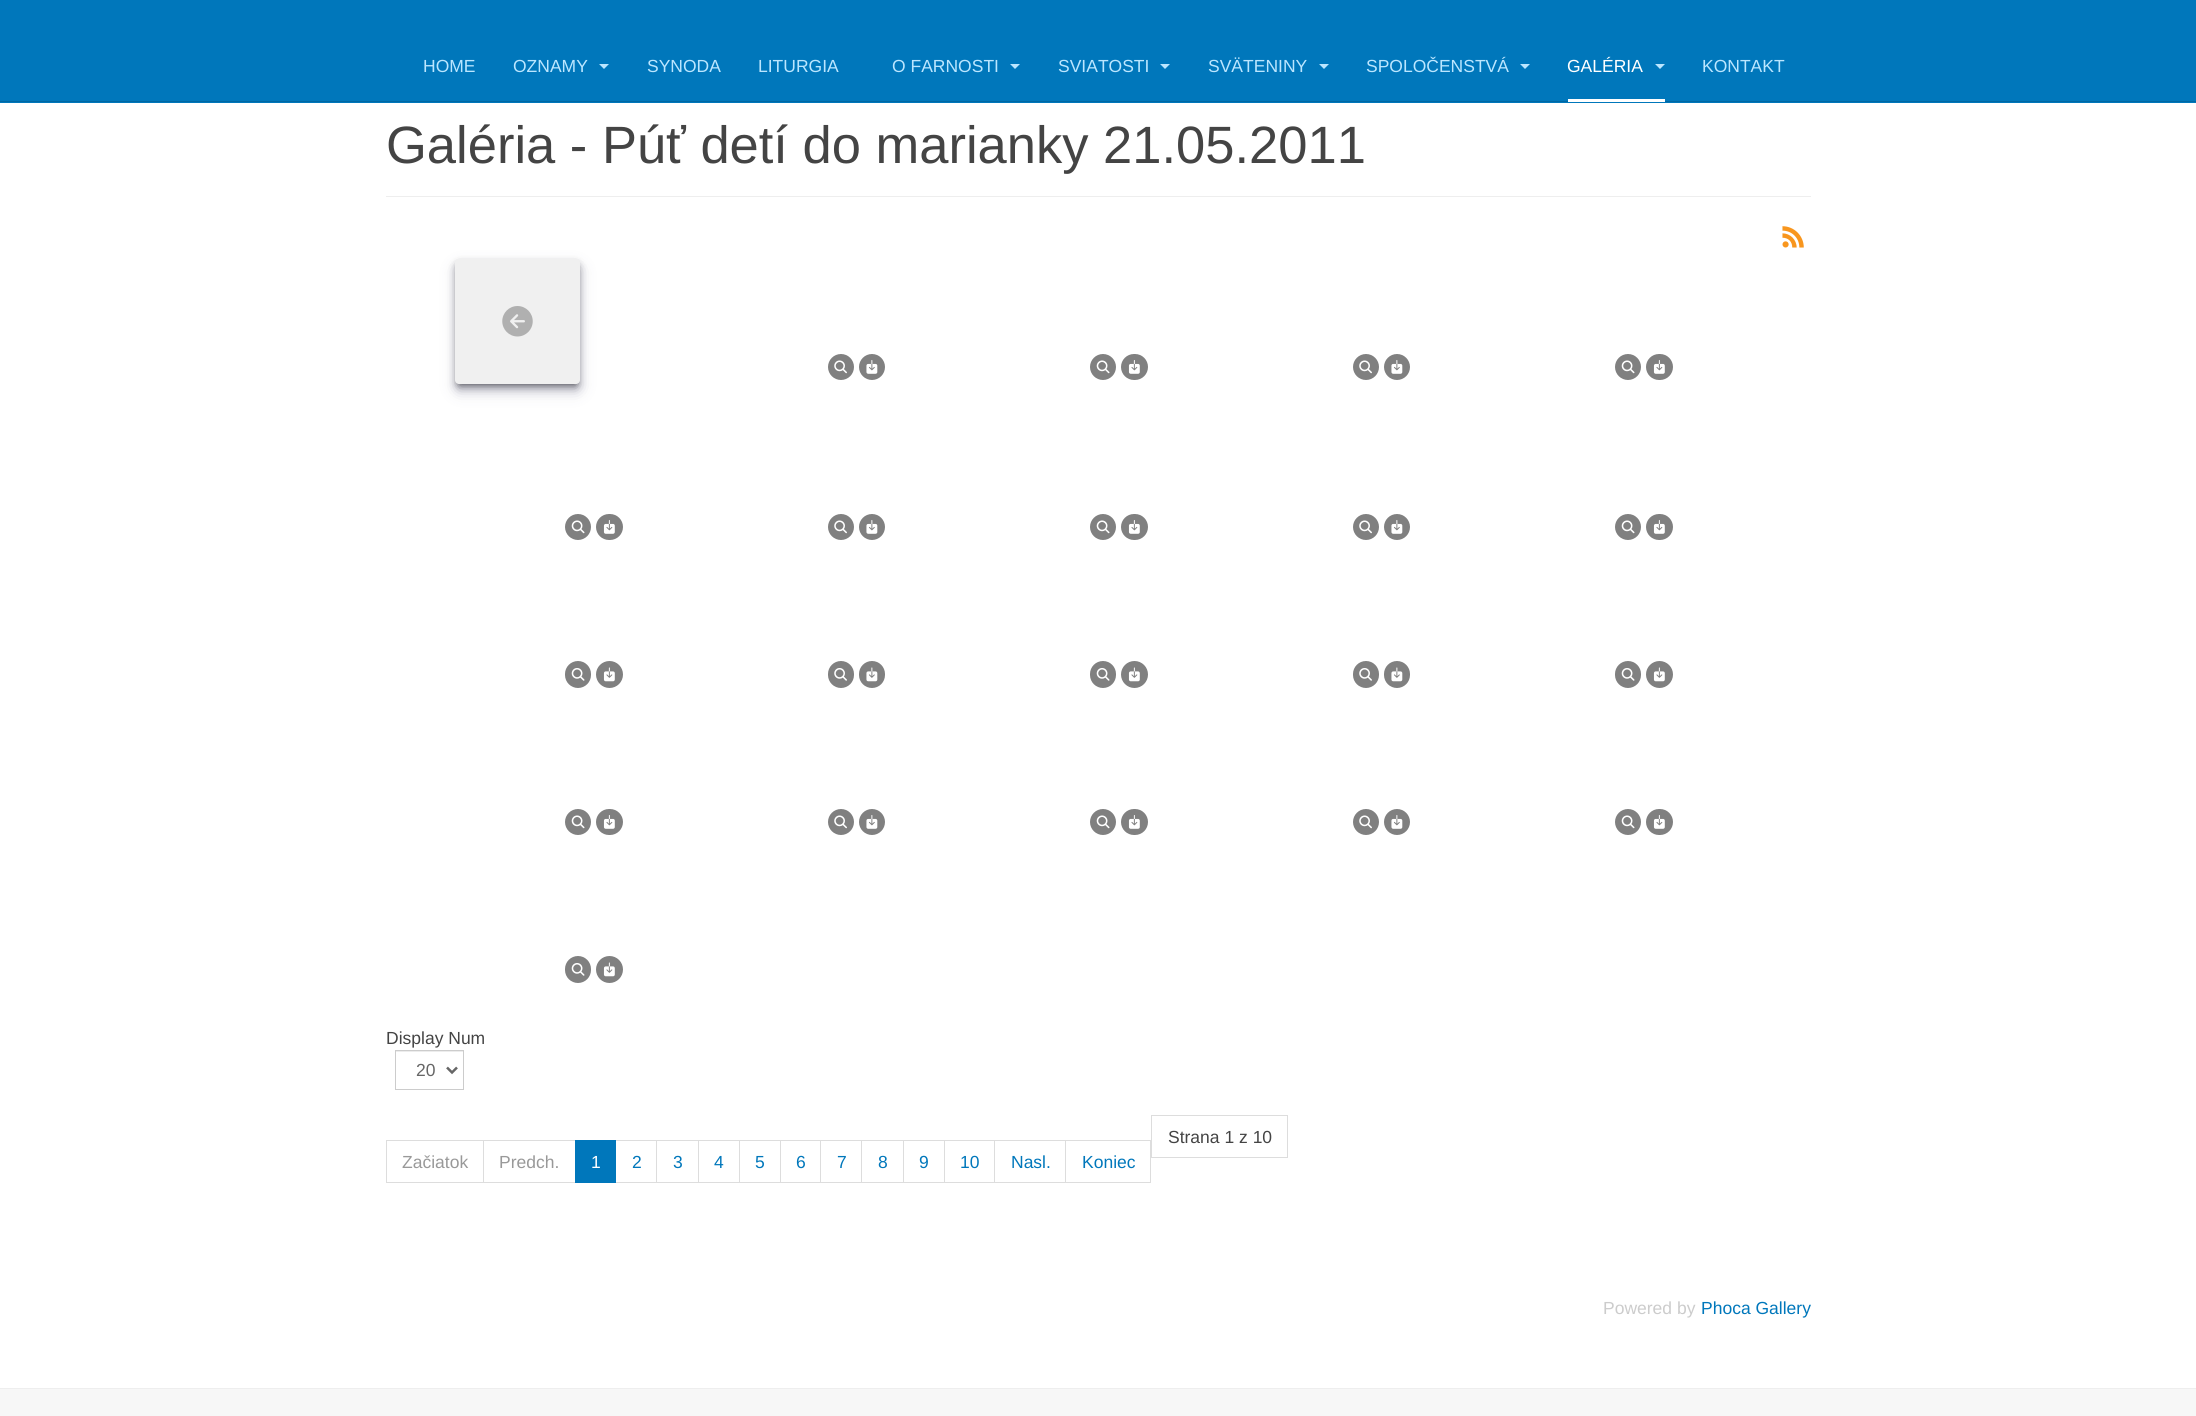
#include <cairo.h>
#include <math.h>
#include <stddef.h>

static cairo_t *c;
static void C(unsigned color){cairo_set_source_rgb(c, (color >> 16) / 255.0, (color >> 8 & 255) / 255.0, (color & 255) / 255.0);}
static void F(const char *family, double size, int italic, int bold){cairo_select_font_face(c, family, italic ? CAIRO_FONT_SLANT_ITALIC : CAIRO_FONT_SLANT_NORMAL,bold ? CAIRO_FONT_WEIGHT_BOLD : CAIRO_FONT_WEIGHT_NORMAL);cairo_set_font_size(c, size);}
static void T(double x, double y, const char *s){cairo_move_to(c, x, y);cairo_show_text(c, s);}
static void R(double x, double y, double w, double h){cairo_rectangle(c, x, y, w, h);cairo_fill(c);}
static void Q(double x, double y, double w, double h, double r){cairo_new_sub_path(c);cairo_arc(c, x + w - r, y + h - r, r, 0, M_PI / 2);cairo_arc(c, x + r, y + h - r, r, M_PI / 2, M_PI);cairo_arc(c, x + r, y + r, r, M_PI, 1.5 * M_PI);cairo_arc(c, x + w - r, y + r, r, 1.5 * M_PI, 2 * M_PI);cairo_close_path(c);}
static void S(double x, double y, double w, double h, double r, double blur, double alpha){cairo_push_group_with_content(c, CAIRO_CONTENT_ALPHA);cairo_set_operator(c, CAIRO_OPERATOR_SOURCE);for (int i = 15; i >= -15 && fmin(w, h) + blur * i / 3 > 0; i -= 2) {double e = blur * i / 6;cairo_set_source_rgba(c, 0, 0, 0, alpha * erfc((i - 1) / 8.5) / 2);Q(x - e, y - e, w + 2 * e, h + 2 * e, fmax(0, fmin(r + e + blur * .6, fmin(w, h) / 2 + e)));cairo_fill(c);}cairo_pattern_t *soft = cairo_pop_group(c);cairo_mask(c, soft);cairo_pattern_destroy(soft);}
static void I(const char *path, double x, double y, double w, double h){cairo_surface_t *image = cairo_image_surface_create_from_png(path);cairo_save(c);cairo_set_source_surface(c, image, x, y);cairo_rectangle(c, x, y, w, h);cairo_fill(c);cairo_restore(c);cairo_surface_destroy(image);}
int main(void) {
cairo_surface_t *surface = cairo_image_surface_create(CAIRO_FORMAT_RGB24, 2196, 1416);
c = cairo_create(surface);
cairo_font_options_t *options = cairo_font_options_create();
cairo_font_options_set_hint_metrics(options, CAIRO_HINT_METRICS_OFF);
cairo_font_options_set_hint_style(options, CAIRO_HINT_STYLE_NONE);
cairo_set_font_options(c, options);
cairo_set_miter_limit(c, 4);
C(0xffffff);
cairo_paint(c);
C(0x0077bb);
R(0,0,2196,103);
C(0x0067a2);
R(0,101,2196,1);
F("Liberation Sans",17.5,0,0);
C(0xbbe6ff);
T(423,72,"HOME");
T(513,72,"OZNAMY");
cairo_new_path(c);
cairo_move_to(c,599,64);
cairo_line_to(c,609,64);
cairo_line_to(c,604,69);
cairo_close_path(c);
cairo_fill(c);
T(647,72,"SYNODA");
T(758,72,"LITURGIA");
T(892,72,"O FARNOSTI");
cairo_new_path(c);
cairo_move_to(c,1010,64);
cairo_line_to(c,1020,64);
cairo_line_to(c,1015,69);
cairo_close_path(c);
cairo_fill(c);
T(1058,72,"SVIATOSTI");
cairo_new_path(c);
cairo_move_to(c,1160,64);
cairo_line_to(c,1170,64);
cairo_line_to(c,1165,69);
cairo_close_path(c);
cairo_fill(c);
T(1208,72,"SVÄTENINY");
cairo_new_path(c);
cairo_move_to(c,1319,64);
cairo_line_to(c,1329,64);
cairo_line_to(c,1324,69);
cairo_close_path(c);
cairo_fill(c);
T(1366,72,"SPOLOČENSTVÁ");
cairo_new_path(c);
cairo_move_to(c,1520,64);
cairo_line_to(c,1530,64);
cairo_line_to(c,1525,69);
cairo_close_path(c);
cairo_fill(c);
C(0xffffff);
R(1568,99,97,3);
T(1567,72,"GALÉRIA");
C(0xbbe6ff);
cairo_new_path(c);
cairo_move_to(c,1655,64);
cairo_line_to(c,1665,64);
cairo_line_to(c,1660,69);
cairo_close_path(c);
cairo_fill(c);
T(1702,72,"KONTAKT");
C(0xeeeeee);
R(386,196,1425,1);
F("Liberation Sans",52.5,0,0);
C(0x444444);
T(386,163,"Galéria - Púť detí do marianky 21.05.2011");
I("1.png",1782,226,22,22);
C(0x32325d);
S(458,269,120,120,1,7.5,.4);
C(0x000000);
S(459,266,117,118,0,4.5,.7);
C(0xf0f0f0);
Q(455,259,125,125,4);
cairo_fill(c);
I("2.png",502,306,31,31);
C(0x808080);
cairo_arc(c,841,367,13,0,2 * M_PI);
cairo_fill(c);
cairo_arc(c,872,367,13,0,2 * M_PI);
cairo_fill(c);
I("3.png",834,360,13,14);
I("4.png",866,360,12,14);
cairo_arc(c,1103,367,13,0,2 * M_PI);
cairo_fill(c);
Q(1121,354,27,26,13);
cairo_fill(c);
I("5.png",1096,360,14,14);
I("6.png",1128,360,12,14);
cairo_arc(c,1366,367,13,0,2 * M_PI);
cairo_fill(c);
cairo_arc(c,1397,367,13,0,2 * M_PI);
cairo_fill(c);
I("3.png",1359,360,13,14);
I("4.png",1391,360,12,14);
cairo_arc(c,1628,367,13,0,2 * M_PI);
cairo_fill(c);
Q(1646,354,27,26,13);
cairo_fill(c);
I("5.png",1621,360,14,14);
I("6.png",1653,360,12,14);
cairo_arc(c,578,527,13,0,2 * M_PI);
cairo_fill(c);
Q(596,514,27,26,13);
cairo_fill(c);
I("5.png",571,520,14,14);
I("6.png",603,520,12,14);
cairo_arc(c,841,527,13,0,2 * M_PI);
cairo_fill(c);
cairo_arc(c,872,527,13,0,2 * M_PI);
cairo_fill(c);
I("3.png",834,520,13,14);
I("4.png",866,520,12,14);
cairo_arc(c,1103,527,13,0,2 * M_PI);
cairo_fill(c);
Q(1121,514,27,26,13);
cairo_fill(c);
I("5.png",1096,520,14,14);
I("6.png",1128,520,12,14);
cairo_arc(c,1366,527,13,0,2 * M_PI);
cairo_fill(c);
cairo_arc(c,1397,527,13,0,2 * M_PI);
cairo_fill(c);
I("3.png",1359,520,13,14);
I("4.png",1391,520,12,14);
cairo_arc(c,1628,527,13,0,2 * M_PI);
cairo_fill(c);
Q(1646,514,27,26,13);
cairo_fill(c);
I("5.png",1621,520,14,14);
I("6.png",1653,520,12,14);
Q(565,661,26,27,13);
cairo_fill(c);
cairo_arc(c,609.5,674.5,13.5,0,2 * M_PI);
cairo_fill(c);
I("7.png",571,668,14,13);
I("8.png",603,667,12,15);
Q(828,661,26,27,13);
cairo_fill(c);
Q(859,661,26,27,13);
cairo_fill(c);
I("9.png",834,668,13,13);
I("10.png",866,667,12,15);
Q(1090,661,26,27,13);
cairo_fill(c);
cairo_arc(c,1134.5,674.5,13.5,0,2 * M_PI);
cairo_fill(c);
I("7.png",1096,668,14,13);
I("8.png",1128,667,12,15);
Q(1353,661,26,27,13);
cairo_fill(c);
Q(1384,661,26,27,13);
cairo_fill(c);
I("9.png",1359,668,13,13);
I("10.png",1391,667,12,15);
Q(1615,661,26,27,13);
cairo_fill(c);
cairo_arc(c,1659.5,674.5,13.5,0,2 * M_PI);
cairo_fill(c);
I("7.png",1621,668,14,13);
I("8.png",1653,667,12,15);
cairo_arc(c,578,822,13,0,2 * M_PI);
cairo_fill(c);
Q(596,809,27,26,13);
cairo_fill(c);
I("5.png",571,815,14,14);
I("6.png",603,815,12,14);
cairo_arc(c,841,822,13,0,2 * M_PI);
cairo_fill(c);
cairo_arc(c,872,822,13,0,2 * M_PI);
cairo_fill(c);
I("3.png",834,815,13,14);
I("4.png",866,815,12,14);
cairo_arc(c,1103,822,13,0,2 * M_PI);
cairo_fill(c);
Q(1121,809,27,26,13);
cairo_fill(c);
I("5.png",1096,815,14,14);
I("6.png",1128,815,12,14);
cairo_arc(c,1366,822,13,0,2 * M_PI);
cairo_fill(c);
cairo_arc(c,1397,822,13,0,2 * M_PI);
cairo_fill(c);
I("3.png",1359,815,13,14);
I("4.png",1391,815,12,14);
cairo_arc(c,1628,822,13,0,2 * M_PI);
cairo_fill(c);
Q(1646,809,27,26,13);
cairo_fill(c);
I("5.png",1621,815,14,14);
I("6.png",1653,815,12,14);
Q(565,956,26,27,13);
cairo_fill(c);
cairo_arc(c,609.5,969.5,13.5,0,2 * M_PI);
cairo_fill(c);
I("7.png",571,963,14,13);
I("8.png",603,962,12,15);
F("Liberation Sans",17.5,0,0);
C(0x444444);
T(386,1044,"Display Num");
C(0xececec);
R(396,1051,67,1);
cairo_rectangle(c,395.5,1050.5,68,39);
C(0xcccccc);
cairo_set_line_width(c,1);
cairo_stroke(c);
cairo_new_path(c);
cairo_move_to(c,447,1067.5);
cairo_line_to(c,452,1072.5);
cairo_line_to(c,457,1067.5);
C(0x666666);
cairo_set_line_width(c,2.5);
cairo_stroke(c);
T(416,1076,"20");
cairo_rectangle(c,1151.5,1115.5,136,42);
C(0xdddddd);
cairo_set_line_width(c,1);
cairo_stroke(c);
C(0x444444);
T(1168,1143,"Strana 1 z 10");
cairo_rectangle(c,386.5,1140.5,97,42);
C(0xdddddd);
cairo_stroke(c);
C(0x999999);
T(402,1168,"Začiatok");
cairo_rectangle(c,483.5,1140.5,92,42);
C(0xdddddd);
cairo_stroke(c);
C(0x999999);
T(499,1168,"Predch.");
cairo_rectangle(c,615.5,1140.5,42,42);
C(0xdddddd);
cairo_stroke(c);
C(0x0077bb);
R(575,1140,41,43);
C(0xffffff);
T(591,1168,"1");
C(0x0077bb);
T(632,1168,"2");
C(0xffffff);
R(657,1141,1,41);
cairo_rectangle(c,656.5,1140.5,42,42);
C(0xdddddd);
cairo_stroke(c);
C(0x0077bb);
T(673,1168,"3");
cairo_rectangle(c,698.5,1140.5,41,42);
C(0xdddddd);
cairo_stroke(c);
C(0x0077bb);
T(714,1168,"4");
cairo_rectangle(c,739.5,1140.5,41,42);
C(0xdddddd);
cairo_stroke(c);
C(0x0077bb);
T(755,1168,"5");
cairo_rectangle(c,780.5,1140.5,40,42);
C(0xdddddd);
cairo_stroke(c);
C(0x0077bb);
T(796,1168,"6");
cairo_rectangle(c,820.5,1140.5,42,42);
C(0xdddddd);
cairo_stroke(c);
C(0x0077bb);
T(837,1168,"7");
C(0xffffff);
R(862,1141,1,41);
cairo_rectangle(c,861.5,1140.5,42,42);
C(0xdddddd);
cairo_stroke(c);
C(0x0077bb);
T(878,1168,"8");
cairo_rectangle(c,903.5,1140.5,41,42);
C(0xdddddd);
cairo_stroke(c);
C(0x0077bb);
T(919,1168,"9");
cairo_rectangle(c,944.5,1140.5,50,42);
C(0xdddddd);
cairo_stroke(c);
C(0x0077bb);
T(960,1168,"10");
cairo_rectangle(c,994.5,1140.5,71,42);
C(0xdddddd);
cairo_stroke(c);
C(0x0077bb);
T(1011,1168,"Nasl.");
cairo_rectangle(c,1065.5,1140.5,85,42);
C(0xdddddd);
cairo_stroke(c);
C(0x0077bb);
T(1082,1168,"Koniec");
C(0xcccccc);
T(1603,1314,"Powered by");
C(0x0077bb);
T(1701,1314,"Phoca Gallery");
C(0xf7f7f7);
R(0,1389,2196,27);
C(0xeeeeee);
R(0,1388,2196,1);
cairo_surface_write_to_png(surface, "o.png");
cairo_font_options_destroy(options);
cairo_destroy(c);
cairo_surface_destroy(surface);
return 0;
}
